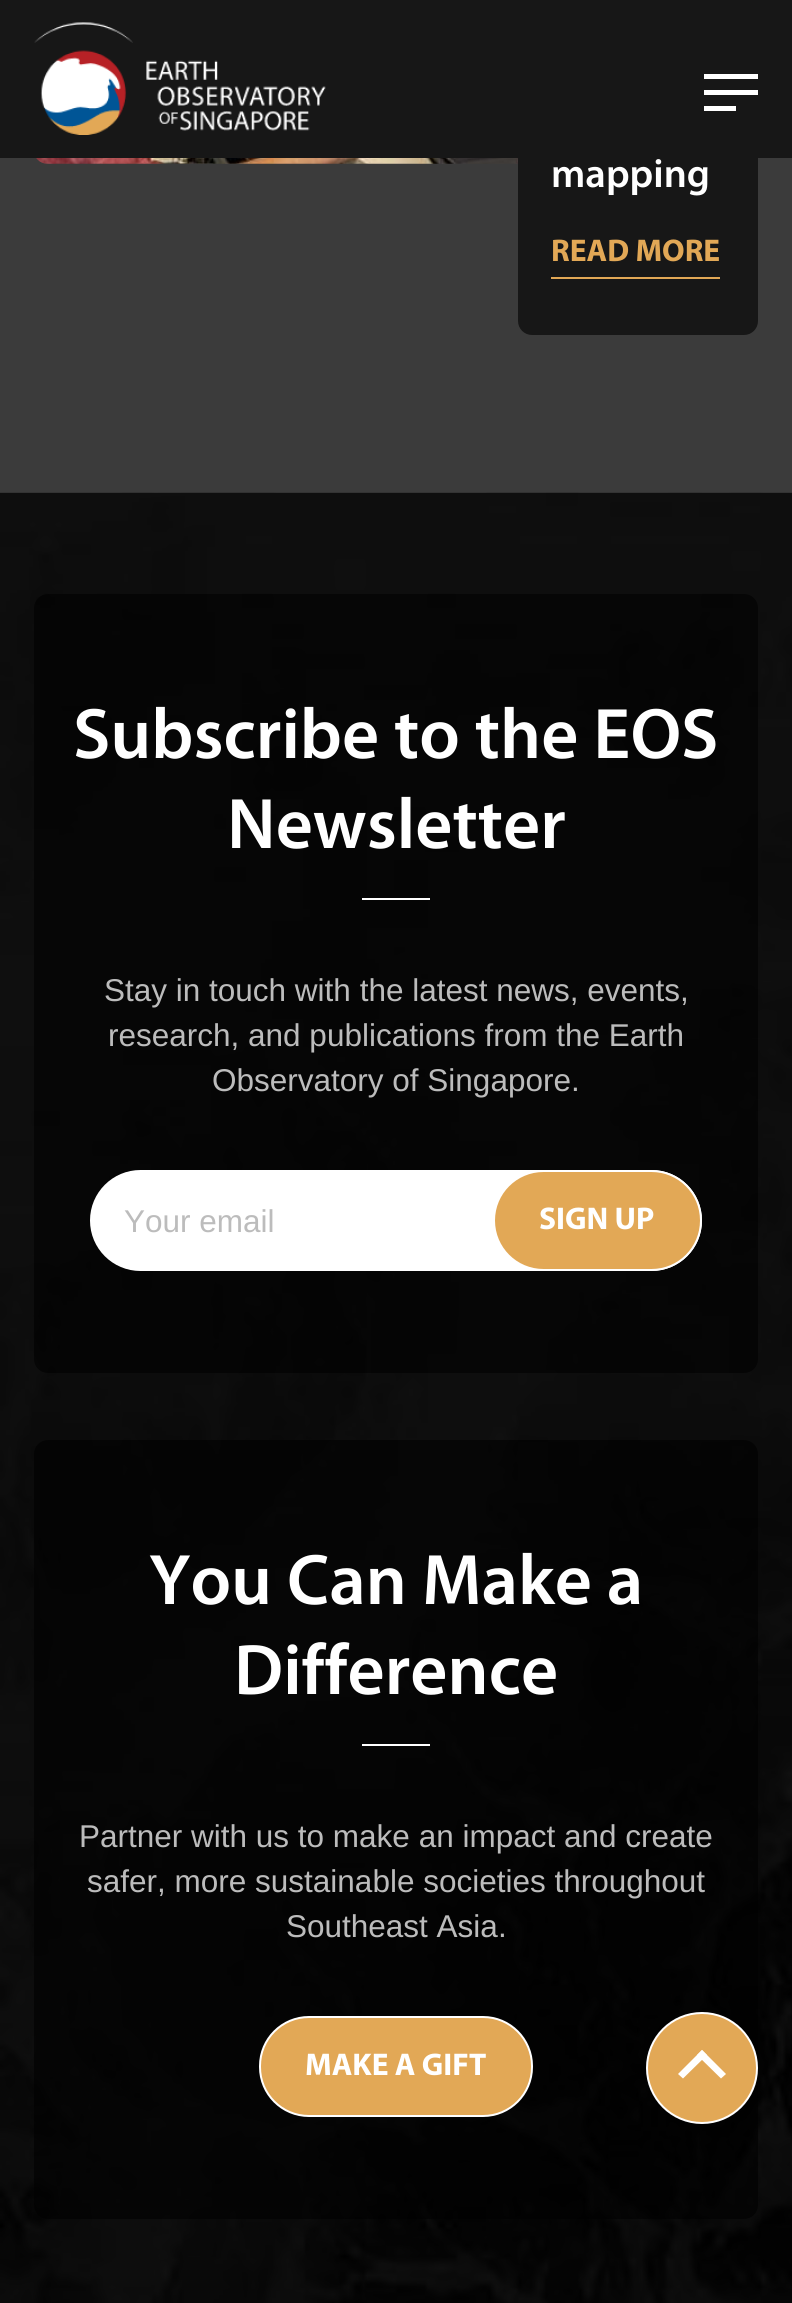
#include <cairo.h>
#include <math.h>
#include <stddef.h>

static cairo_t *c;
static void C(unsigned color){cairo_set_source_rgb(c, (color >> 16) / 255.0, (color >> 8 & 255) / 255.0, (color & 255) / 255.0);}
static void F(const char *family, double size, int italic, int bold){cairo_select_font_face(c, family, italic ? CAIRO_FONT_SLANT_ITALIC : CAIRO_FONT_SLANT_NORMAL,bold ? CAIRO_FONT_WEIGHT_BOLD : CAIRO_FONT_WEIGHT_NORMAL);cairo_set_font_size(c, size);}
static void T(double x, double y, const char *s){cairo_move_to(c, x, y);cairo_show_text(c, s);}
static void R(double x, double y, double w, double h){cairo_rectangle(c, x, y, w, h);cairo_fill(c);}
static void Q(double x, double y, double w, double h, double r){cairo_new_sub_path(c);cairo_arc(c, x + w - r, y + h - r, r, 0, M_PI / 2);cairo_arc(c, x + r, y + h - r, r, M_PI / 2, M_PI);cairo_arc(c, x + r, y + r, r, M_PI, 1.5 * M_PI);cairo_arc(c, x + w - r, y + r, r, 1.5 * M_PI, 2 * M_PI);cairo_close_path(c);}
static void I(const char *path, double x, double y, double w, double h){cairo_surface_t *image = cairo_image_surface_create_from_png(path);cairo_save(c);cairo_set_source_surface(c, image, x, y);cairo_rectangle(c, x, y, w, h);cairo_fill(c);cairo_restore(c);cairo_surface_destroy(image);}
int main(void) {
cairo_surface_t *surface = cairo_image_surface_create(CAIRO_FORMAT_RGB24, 792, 2303);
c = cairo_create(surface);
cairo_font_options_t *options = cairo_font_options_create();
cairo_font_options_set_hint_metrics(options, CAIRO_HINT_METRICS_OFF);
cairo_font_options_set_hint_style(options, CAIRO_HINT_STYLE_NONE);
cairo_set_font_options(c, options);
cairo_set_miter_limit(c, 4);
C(0x3b3b3b);
cairo_paint(c);
C(0x171717);
Q(518,-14,240,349,14);
cairo_fill(c);
R(0,0,792,158);
I("1.png",34,22,292,113);
C(0xffffff);
R(704,74,54,5);
R(704,90,54,5);
R(704,106,32,5);
I("2.png",36,158,482,6);
F("Myriad SemiBold",40.5,0,0);
T(551,187,"mapping");
C(0xe2a856);
R(551,277,169,2);
F("Myriad",31.5,0,1);
T(551,261,"READ MORE");
I("3.png",0,492,792,1811);
cairo_set_source_rgba(c,0,0,0,0.6);
Q(34,594,724,779,14);
cairo_fill(c);
F("Myriad SemiBold",72,0,0);
C(0xffffff);
T(73,758,"Subscribe to the EOS");
T(227,848,"Newsletter");
R(362,898,68,2);
F("Liberation Sans",31.5,0,0);
C(0xbcbcbc);
T(104,1001,"Stay in touch with the latest news, events,");
T(108,1046,"research, and publications from the Earth");
T(212,1091,"Observatory of Singapore.");
C(0xffffff);
Q(90,1170,612,101,50.5);
cairo_fill(c);
C(0xbcbcbc);
T(124,1232,"Your email");
C(0xe2a856);
Q(494,1171,207,99,49.5);
cairo_fill_preserve(c);
C(0xffffff);
cairo_stroke(c);
F("Myriad",31.5,0,1);
T(539,1229,"SIGN UP");
cairo_set_source_rgba(c,0,0,0,0.6);
Q(34,1440,724,779,14);
cairo_fill(c);
F("Myriad SemiBold",72,0,0);
C(0xffffff);
T(149,1604,"You Can Make a");
T(234,1694,"Difference");
R(362,1744,68,2);
F("Liberation Sans",31.5,0,0);
C(0xbcbcbc);
T(79,1847,"Partner with us to make an impact and create");
T(87,1892,"safer, more sustainable societies throughout");
T(286,1937,"Southeast Asia.");
C(0xe2a856);
Q(260,2017,272,99,49);
cairo_fill_preserve(c);
C(0xffffff);
cairo_stroke(c);
F("Myriad",31.5,0,1);
T(305,2075,"MAKE A GIFT");
C(0xe2a856);
cairo_new_path(c);
cairo_arc(c,702,2068,55,0,2 * M_PI);
cairo_fill_preserve(c);
C(0xffffff);
cairo_stroke(c);
cairo_new_path(c);
cairo_move_to(c,683,2078.5);
cairo_line_to(c,678,2074);
cairo_line_to(c,702,2050);
cairo_line_to(c,707,2055);
cairo_close_path(c);
cairo_fill(c);
cairo_new_path(c);
cairo_move_to(c,721,2078.5);
cairo_line_to(c,697,2055);
cairo_line_to(c,702,2050);
cairo_line_to(c,726,2074);
cairo_close_path(c);
cairo_fill(c);
cairo_surface_write_to_png(surface, "o.png");
cairo_font_options_destroy(options);
cairo_destroy(c);
cairo_surface_destroy(surface);
return 0;
}
